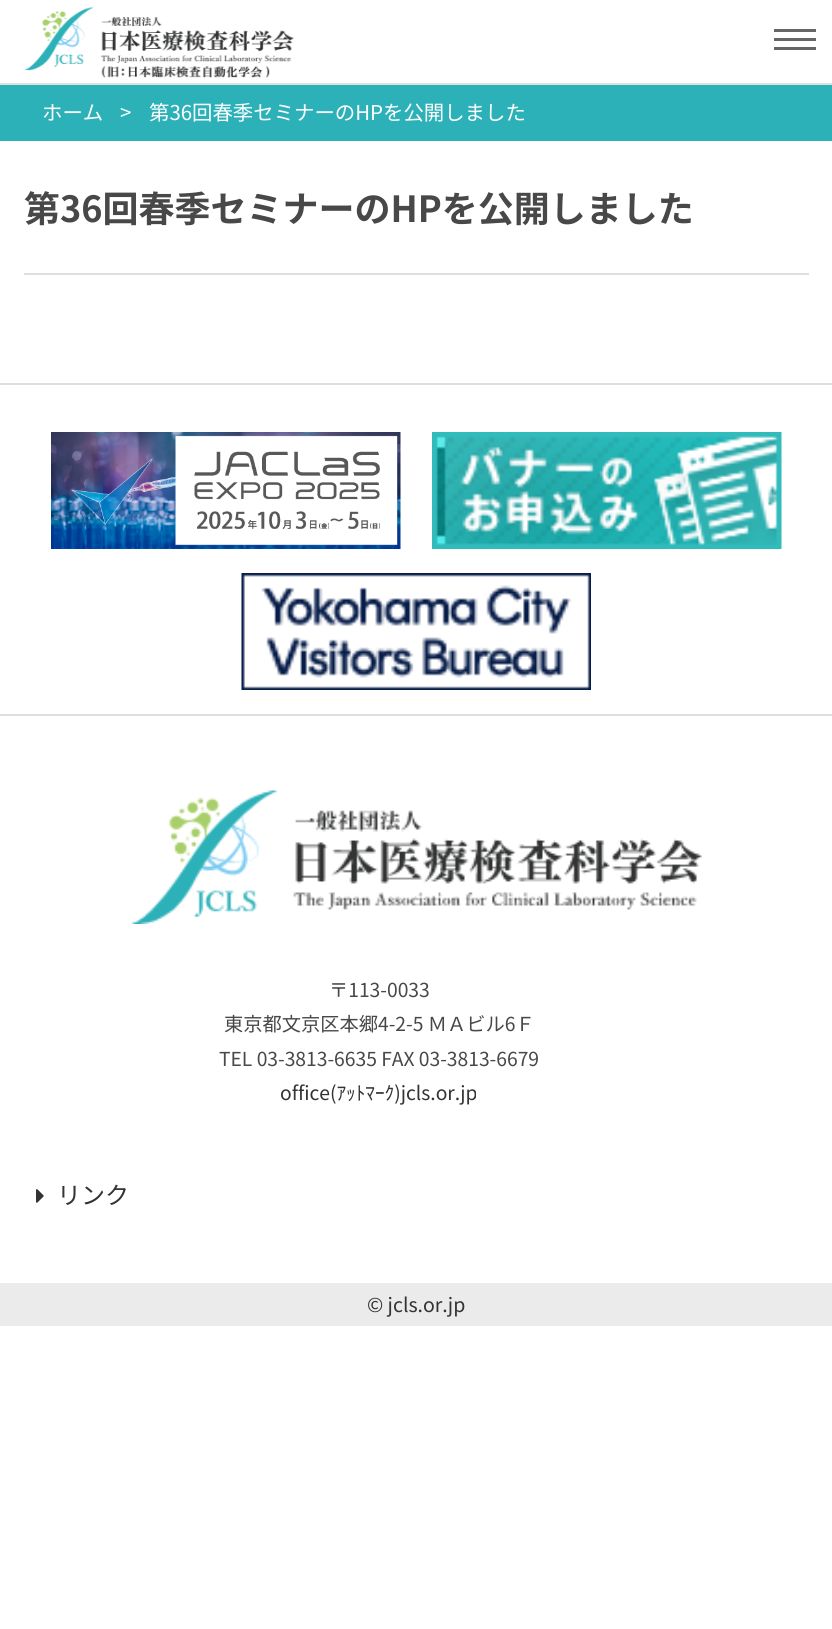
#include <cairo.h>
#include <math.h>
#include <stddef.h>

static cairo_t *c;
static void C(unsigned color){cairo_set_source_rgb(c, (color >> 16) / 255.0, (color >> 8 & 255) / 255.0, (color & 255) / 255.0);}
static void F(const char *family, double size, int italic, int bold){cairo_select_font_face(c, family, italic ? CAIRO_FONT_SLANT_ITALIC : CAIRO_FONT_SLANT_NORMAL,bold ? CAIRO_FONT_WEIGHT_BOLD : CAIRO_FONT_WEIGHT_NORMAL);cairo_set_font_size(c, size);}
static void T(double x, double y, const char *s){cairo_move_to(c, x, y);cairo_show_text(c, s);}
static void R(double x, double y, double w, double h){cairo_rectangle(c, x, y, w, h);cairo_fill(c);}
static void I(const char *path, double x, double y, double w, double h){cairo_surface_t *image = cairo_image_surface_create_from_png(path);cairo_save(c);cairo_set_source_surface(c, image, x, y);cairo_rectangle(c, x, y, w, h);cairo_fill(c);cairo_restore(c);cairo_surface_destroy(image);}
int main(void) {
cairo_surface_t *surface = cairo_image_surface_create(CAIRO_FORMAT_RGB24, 832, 1629);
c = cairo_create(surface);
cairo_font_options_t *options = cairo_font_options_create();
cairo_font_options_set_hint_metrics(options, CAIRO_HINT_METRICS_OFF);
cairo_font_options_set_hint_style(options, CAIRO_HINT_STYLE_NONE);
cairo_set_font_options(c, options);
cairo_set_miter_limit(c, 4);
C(0xffffff);
cairo_paint(c);
C(0xdfdfdf);
R(0,83,832,2);
I("1.png",24,7,270,71);
C(0x666666);
R(774,29,42,3);
R(774,38,42,3);
R(774,47,42,3);
C(0x2db1b9);
R(0,85,832,56);
F("Noto Sans JP",20.4,0,0);
C(0xffffff);
T(42,120,"ホーム");
T(120,120,">");
T(149,120,"第36回春季セミナーのHPを公開しました");
C(0xdfdfdf);
R(24,273,785,2);
F("Noto Sans JP",36,0,1);
C(0x484848);
T(24,222,"第36回春季セミナーのHPを公開しました");
C(0xdfdfdf);
R(0,383,832,2);
I("2.png",51,432,350,117);
I("3.png",432,432,350,117);
I("4.png",241,573,350,117);
R(0,714,832,2);
I("5.png",130,790,572,134);
F("Noto Sans JP",19.25,0,0);
C(0x484848);
T(329,997,"〒113-0033");
T(224,1031,"東京都文京区本郷4-2-5 ＭＡビル6Ｆ");
T(219,1066,"TEL 03-3813-6635 FAX 03-3813-6679");
C(0x333333);
T(280,1100,"office(ｱｯﾄﾏｰｸ)jcls.or.jp");
I("6.png",36,1189,8,14);
F("Noto Sans JP",24,0,0);
T(57,1204,"リンク");
C(0xebebeb);
R(0,1283,832,43);
F("Noto Sans JP",19.5,0,0);
C(0x333333);
T(367,1312,"© jcls.or.jp");
cairo_surface_write_to_png(surface, "o.png");
cairo_font_options_destroy(options);
cairo_destroy(c);
cairo_surface_destroy(surface);
return 0;
}
